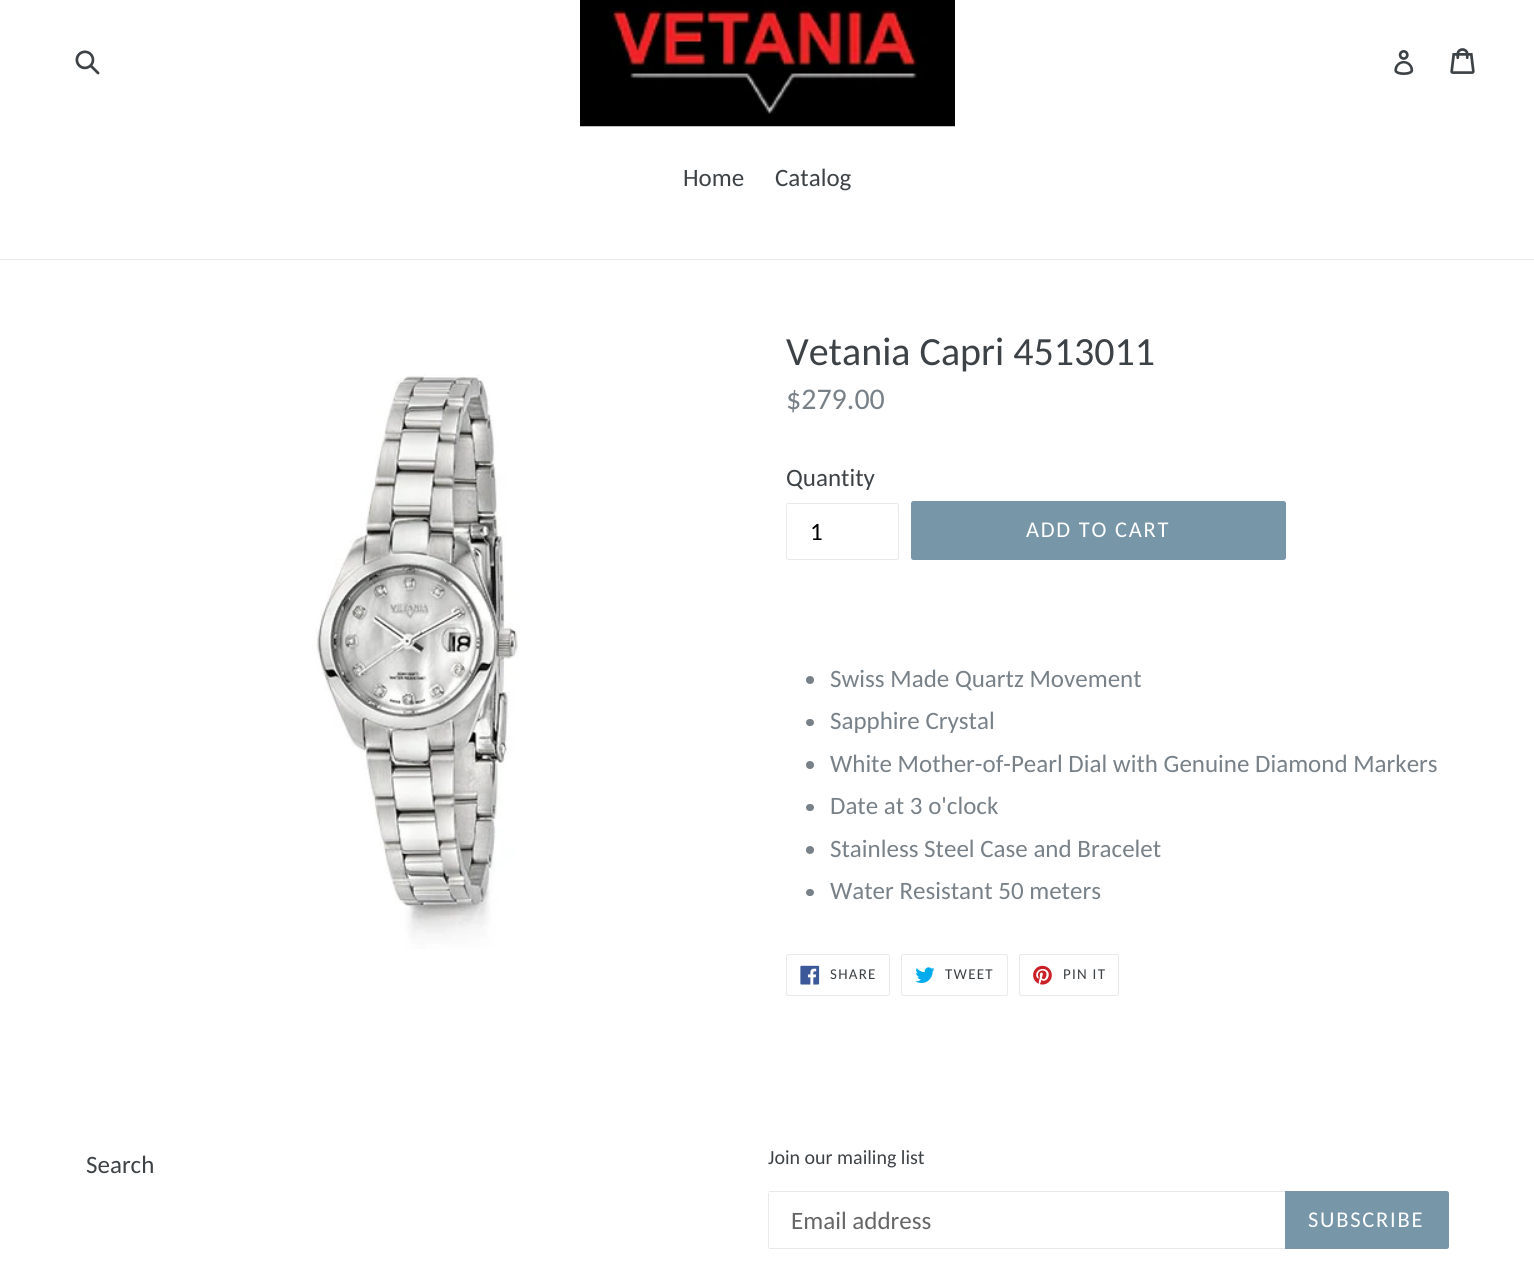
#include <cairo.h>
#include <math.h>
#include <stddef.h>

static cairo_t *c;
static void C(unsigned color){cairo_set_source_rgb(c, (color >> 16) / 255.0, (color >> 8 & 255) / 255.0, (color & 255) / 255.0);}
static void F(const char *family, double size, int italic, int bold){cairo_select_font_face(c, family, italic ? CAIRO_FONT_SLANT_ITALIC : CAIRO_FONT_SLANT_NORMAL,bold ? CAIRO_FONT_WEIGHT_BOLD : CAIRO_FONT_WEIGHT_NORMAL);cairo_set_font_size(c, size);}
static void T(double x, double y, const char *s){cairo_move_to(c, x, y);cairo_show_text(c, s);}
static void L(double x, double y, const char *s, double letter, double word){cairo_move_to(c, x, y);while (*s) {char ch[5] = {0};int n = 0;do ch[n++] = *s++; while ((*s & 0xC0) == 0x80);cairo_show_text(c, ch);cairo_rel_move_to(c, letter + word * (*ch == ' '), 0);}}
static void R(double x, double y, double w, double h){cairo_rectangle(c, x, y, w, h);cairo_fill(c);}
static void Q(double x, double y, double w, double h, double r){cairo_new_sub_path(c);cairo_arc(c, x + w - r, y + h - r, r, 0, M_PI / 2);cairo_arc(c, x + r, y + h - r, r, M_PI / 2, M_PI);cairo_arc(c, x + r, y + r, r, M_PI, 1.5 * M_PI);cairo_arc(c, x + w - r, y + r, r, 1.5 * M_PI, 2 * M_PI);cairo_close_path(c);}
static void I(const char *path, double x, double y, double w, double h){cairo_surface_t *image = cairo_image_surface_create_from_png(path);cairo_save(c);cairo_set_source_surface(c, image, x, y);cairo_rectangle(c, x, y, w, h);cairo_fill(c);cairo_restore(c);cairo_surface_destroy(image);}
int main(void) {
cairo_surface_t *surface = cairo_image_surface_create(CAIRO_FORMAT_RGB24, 1534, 1282);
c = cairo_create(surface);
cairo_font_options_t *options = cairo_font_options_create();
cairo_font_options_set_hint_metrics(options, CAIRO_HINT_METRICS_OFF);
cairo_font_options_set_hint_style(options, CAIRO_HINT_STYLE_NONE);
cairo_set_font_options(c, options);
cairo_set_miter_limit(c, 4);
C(0xffffff);
cairo_paint(c);
I("1.png",75,50,25,25);
I("2.png",580,0,375,127);
I("3.png",1394,50,20,25);
I("4.png",1450,48,25,26);
C(0xe8e9eb);
R(0,259,1534,1);
F("Carlito",25,0,0);
C(0x3d4246);
T(683,186,"Home");
T(775,186,"Catalog");
I("5.png",315,374,205,575);
F("Carlito",40,0,0);
T(786,365,"Vetania Capri 4513011");
F("Carlito",30,0,0);
C(0x788188);
T(786,409,"$279.00");
F("Carlito",25,0,0);
C(0x3d4246);
T(786,486,"Quantity");
Q(786.5,503.5,112,56,2);
C(0xe8e9eb);
cairo_set_line_width(c,1);
cairo_stroke(c);
C(0x000000);
T(810,540,"1");
C(0x7796a8);
Q(911,501,375,59,2.5);
cairo_fill(c);
F("Carlito",22.5,0,0);
C(0xffffff);
L(1026,537,"ADD TO CART",1.75,0);
C(0x788188);
cairo_new_path(c);
cairo_arc(c,810,680,4,0,2 * M_PI);
cairo_fill(c);
F("Carlito",25,0,0);
T(830,687,"Swiss Made Quartz Movement");
Q(806,719,8,7,3.5);
cairo_fill(c);
T(830,729,"Sapphire Crystal");
cairo_new_path(c);
cairo_arc(c,810,765,4,0,2 * M_PI);
cairo_fill(c);
T(830,772,"White Mother-of-Pearl Dial with Genuine Diamond Markers");
Q(806,804,8,7,3.5);
cairo_fill(c);
T(830,814,"Date at 3 o'clock");
cairo_new_path(c);
cairo_arc(c,810,850,4,0,2 * M_PI);
cairo_fill(c);
T(830,857,"Stainless Steel Case and Bracelet");
Q(806,889,8,7,3.5);
cairo_fill(c);
T(830,899,"Water Resistant 50 meters");
Q(786.5,954.5,103,41,2);
C(0xe8e9eb);
cairo_stroke(c);
I("6.png",800,965,20,20);
F("Carlito",15,0,0);
C(0x3d4246);
L(830,979,"SHARE",1.25,0);
Q(901.5,954.5,106,41,2);
C(0xe8e9eb);
cairo_stroke(c);
I("7.png",915,967,20,16);
C(0x3d4246);
L(945,979,"TWEET",1.25,0);
Q(1019.5,954.5,99,41,2);
C(0xe8e9eb);
cairo_stroke(c);
I("8.png",1033,965,19,20);
C(0x3d4246);
L(1063,979,"PIN IT",1.25,0);
F("Carlito",25,0,0);
T(86,1173,"Search");
F("Carlito",20,0,0);
T(768,1164,"Join our mailing list");
C(0xe8e9eb);
R(769,1191,516,1);
R(769,1248,516,1);
R(768,1193,1,55);
F("Carlito",25,0,0);
C(0x666666);
T(791,1229,"Email address");
C(0x7796a8);
cairo_new_path(c);
cairo_move_to(c,1285,1191);
cairo_line_to(c,1446.5,1191);
cairo_curve_to(c,1448,1191,1449,1192,1449,1193.5);
cairo_line_to(c,1449,1246.5);
cairo_curve_to(c,1449,1248,1448,1249,1446.5,1249);
cairo_line_to(c,1285,1249);
cairo_close_path(c);
cairo_fill(c);
F("Carlito",22.5,0,0);
C(0xffffff);
L(1308,1227,"SUBSCRIBE",1.75,0);
cairo_surface_write_to_png(surface, "o.png");
cairo_font_options_destroy(options);
cairo_destroy(c);
cairo_surface_destroy(surface);
return 0;
}
